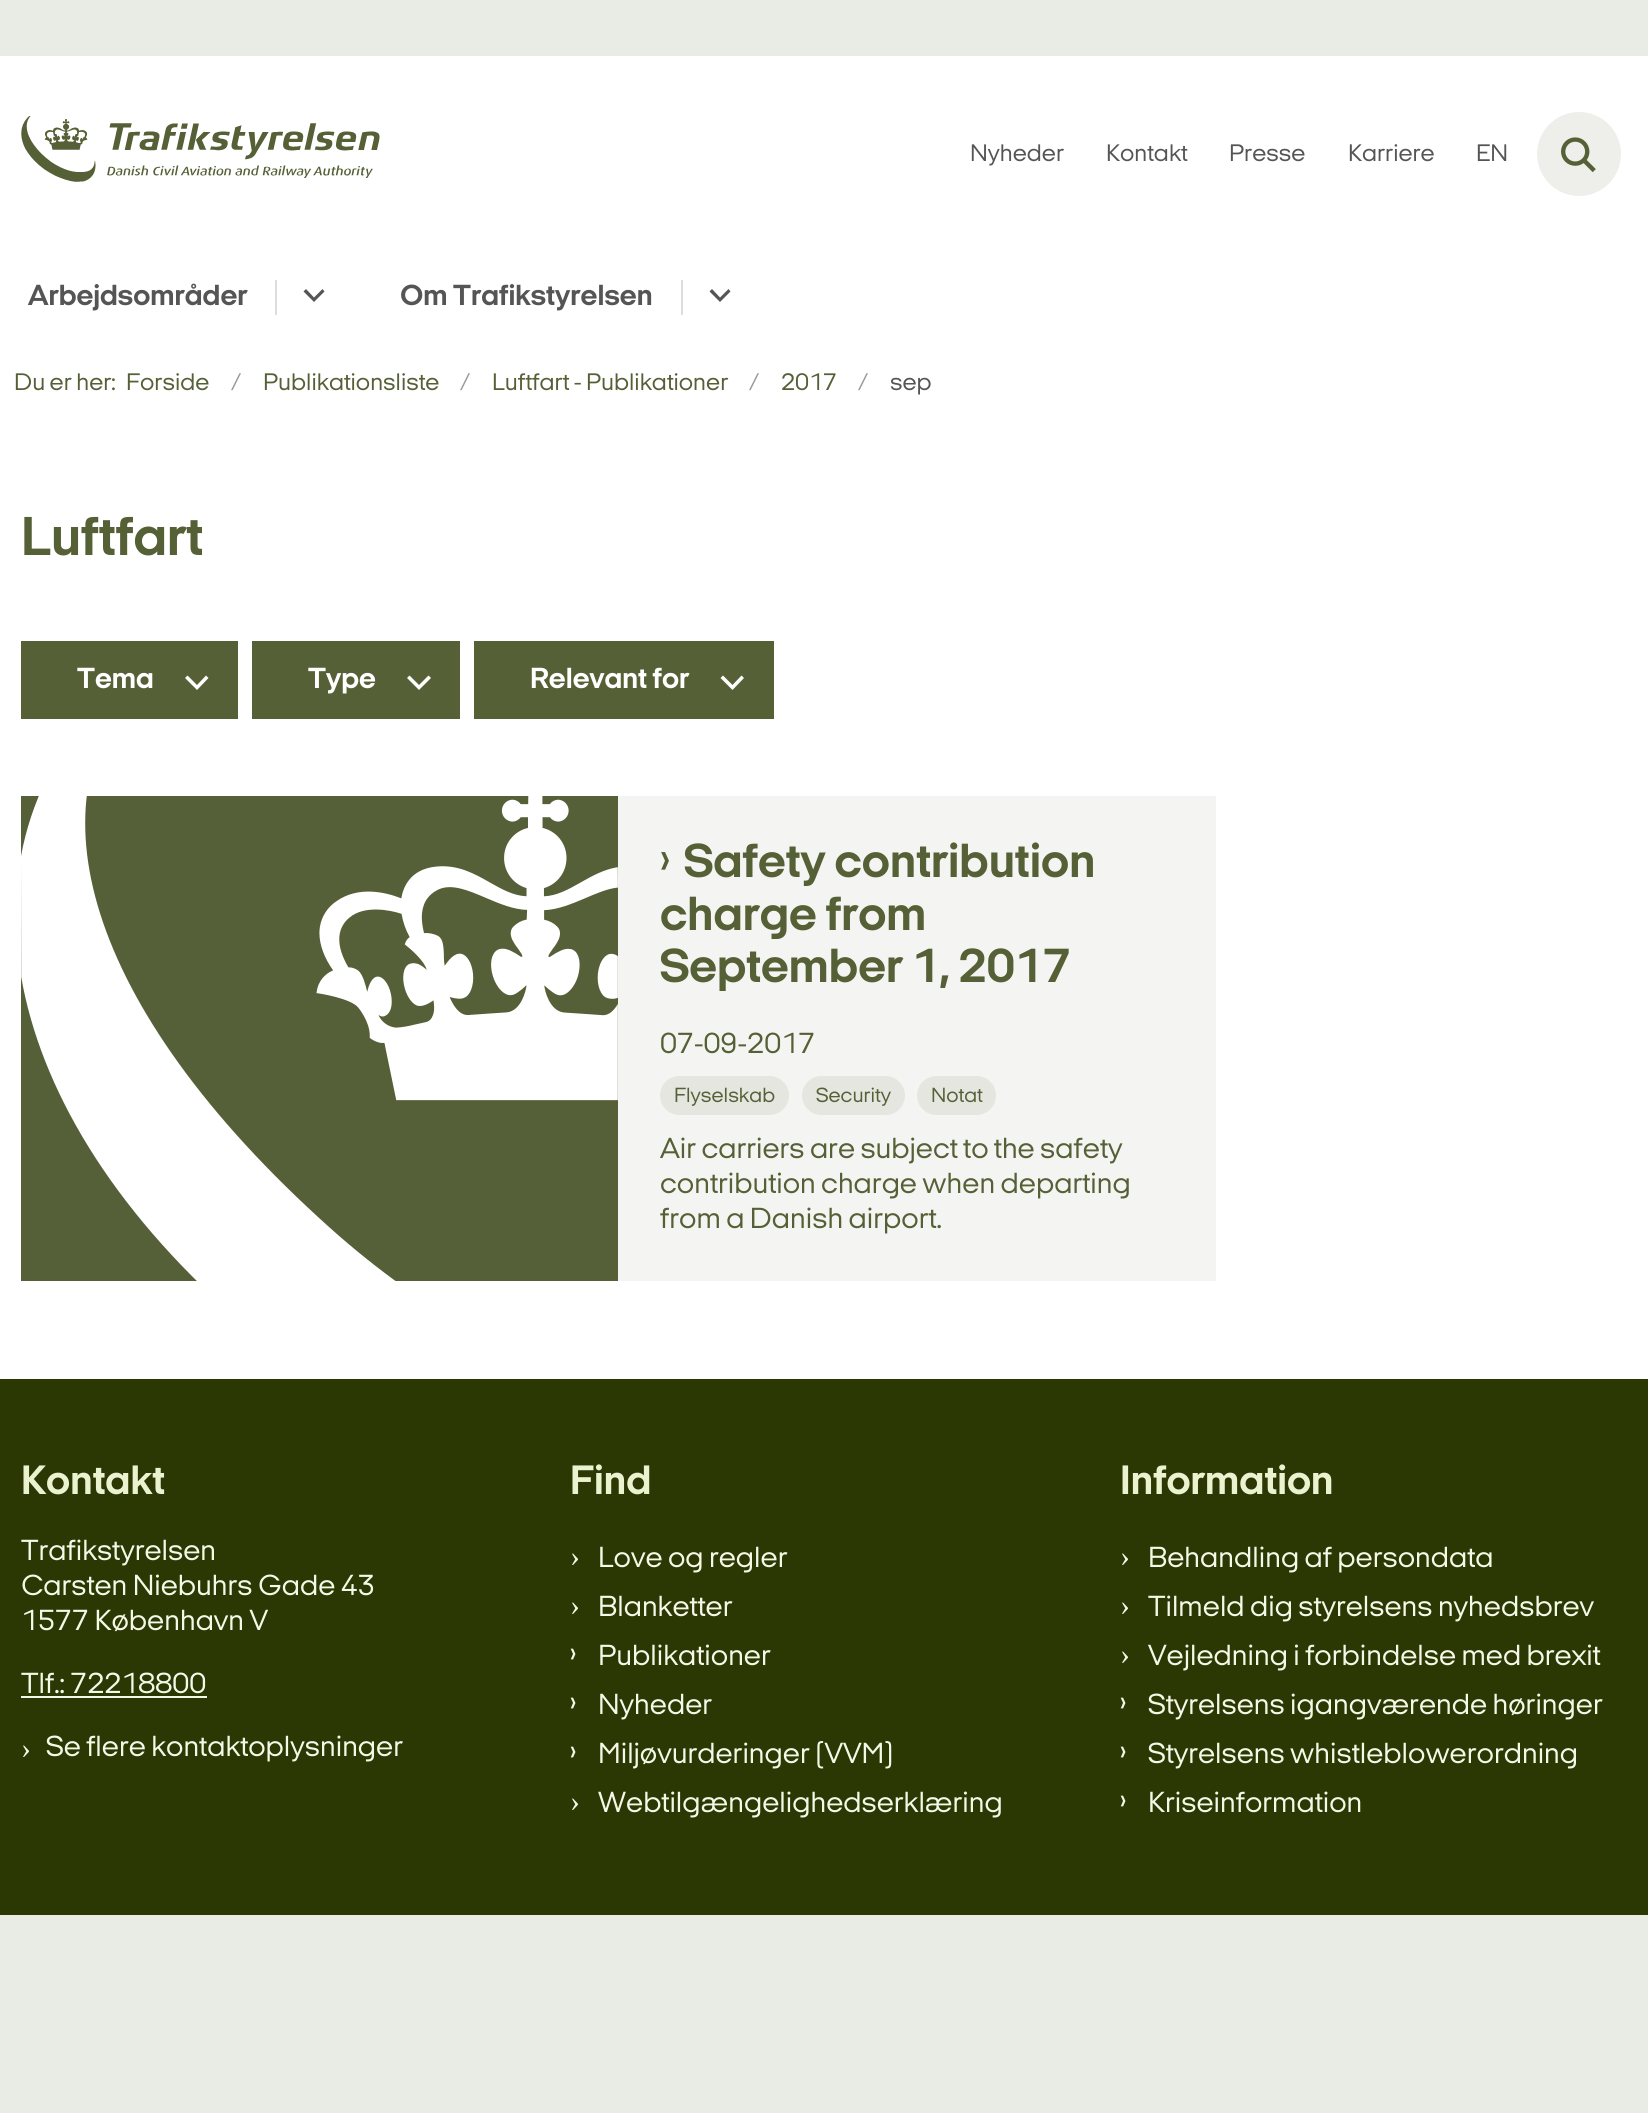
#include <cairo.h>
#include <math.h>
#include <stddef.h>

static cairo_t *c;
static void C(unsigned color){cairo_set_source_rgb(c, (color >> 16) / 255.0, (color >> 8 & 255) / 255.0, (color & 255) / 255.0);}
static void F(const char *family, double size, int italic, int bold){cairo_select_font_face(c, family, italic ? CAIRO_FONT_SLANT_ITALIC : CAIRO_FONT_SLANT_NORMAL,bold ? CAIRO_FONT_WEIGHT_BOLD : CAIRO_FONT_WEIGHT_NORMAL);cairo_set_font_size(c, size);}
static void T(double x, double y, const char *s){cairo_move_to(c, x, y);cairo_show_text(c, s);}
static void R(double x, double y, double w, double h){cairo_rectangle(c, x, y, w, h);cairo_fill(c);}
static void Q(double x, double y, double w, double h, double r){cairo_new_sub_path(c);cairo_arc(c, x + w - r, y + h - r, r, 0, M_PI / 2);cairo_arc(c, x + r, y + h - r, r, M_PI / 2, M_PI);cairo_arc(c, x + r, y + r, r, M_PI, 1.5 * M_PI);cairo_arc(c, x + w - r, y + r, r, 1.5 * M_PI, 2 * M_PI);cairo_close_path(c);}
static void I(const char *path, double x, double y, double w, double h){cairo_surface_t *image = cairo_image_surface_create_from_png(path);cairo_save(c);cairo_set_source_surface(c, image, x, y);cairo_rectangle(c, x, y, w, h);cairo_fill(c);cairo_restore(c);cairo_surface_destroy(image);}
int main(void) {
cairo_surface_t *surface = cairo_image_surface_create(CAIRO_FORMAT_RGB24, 1648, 2113);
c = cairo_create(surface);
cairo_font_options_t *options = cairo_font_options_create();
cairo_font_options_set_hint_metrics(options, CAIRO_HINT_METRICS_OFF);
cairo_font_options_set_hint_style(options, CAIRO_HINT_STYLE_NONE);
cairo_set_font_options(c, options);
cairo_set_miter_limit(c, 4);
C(0xe9ebe5);
cairo_paint(c);
C(0xffffff);
R(0,56,1648,1323);
I("1.png",21,116,359,66);
F("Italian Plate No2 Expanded",24.5,0,0);
C(0x555555);
T(970,161,"Nyheder");
T(1106,161,"Kontakt");
T(1229,161,"Presse");
T(1348,161,"Karriere");
T(1476,161,"EN");
C(0xeeefeb);
cairo_new_path(c);
cairo_arc(c,1579,154,42,0,2 * M_PI);
cairo_fill(c);
I("2.png",1561,137,35,36);
F("Italian Plate No2 Expanded",29.75,0,1);
C(0x555555);
T(28,305,"Arbejdsområder");
C(0xdddddd);
R(275,280,2,35);
C(0x555555);
cairo_new_path(c);
cairo_move_to(c,314,302);
cairo_line_to(c,324.5,291.5);
cairo_line_to(c,322.5,289);
cairo_line_to(c,314,297.5);
cairo_line_to(c,306,289);
cairo_line_to(c,303.5,291.5);
cairo_close_path(c);
cairo_fill(c);
T(400,305,"Om Trafikstyrelsen");
C(0xdddddd);
R(681,280,2,35);
C(0x555555);
cairo_new_path(c);
cairo_move_to(c,720,302);
cairo_line_to(c,730.5,291.5);
cairo_line_to(c,728.5,289);
cairo_line_to(c,720,297.5);
cairo_line_to(c,712,289);
cairo_line_to(c,709.5,291.5);
cairo_close_path(c);
cairo_fill(c);
F("Italian Plate No2 Expanded",24.5,0,0);
C(0x566036);
T(14,390,"Du er her:");
T(126,390,"Forside");
C(0x999999);
T(231,390,"/");
C(0x566036);
T(263,390,"Publikationsliste");
C(0x999999);
T(460,390,"/");
C(0x566036);
T(492,390,"Luftfart - Publikationer");
C(0x999999);
T(749,390,"/");
C(0x566036);
T(781,390,"2017");
C(0x999999);
T(858,390,"/");
C(0x555555);
T(890,390,"sep");
F("Italian Plate No2 Expanded",56,0,1);
C(0x566036);
T(21,555,"Luftfart");
R(21,641,217,78);
F("Italian Plate No2 Expanded",29.75,0,1);
C(0xffffff);
T(77,688,"Tema");
cairo_new_path(c);
cairo_move_to(c,197,690);
cairo_line_to(c,208.5,678);
cairo_line_to(c,206,675.5);
cairo_line_to(c,197,685);
cairo_line_to(c,187.5,675.5);
cairo_line_to(c,185,678);
cairo_close_path(c);
cairo_fill(c);
C(0x566036);
R(252,641,208,78);
C(0xffffff);
T(308,688,"Type");
cairo_new_path(c);
cairo_move_to(c,419,690);
cairo_line_to(c,431,678);
cairo_line_to(c,428.5,675.5);
cairo_line_to(c,419,685);
cairo_line_to(c,409.5,675.5);
cairo_line_to(c,407,678);
cairo_close_path(c);
cairo_fill(c);
C(0x566036);
R(474,641,300,78);
C(0xffffff);
T(530,688,"Relevant for");
cairo_new_path(c);
cairo_move_to(c,732.5,690);
cairo_line_to(c,744,678);
cairo_line_to(c,741.5,675.5);
cairo_line_to(c,732.5,685);
cairo_line_to(c,723,675.5);
cairo_line_to(c,720.5,678);
cairo_close_path(c);
cairo_fill(c);
C(0xf4f5f2);
R(618,796,598,485);
I("3.png",21,796,597,485);
F("Italian Plate No2 Expanded",49,0,0);
C(0x566036);
T(660,874,"›");
F("Italian Plate No2 Expanded",49,0,1);
T(684,877,"Safety contribution");
T(660,930,"charge from");
T(660,982,"September 1, 2017");
F("Italian Plate No2 Expanded",29.75,0,0);
T(660,1053,"07-09-2017");
C(0xe4e6df);
Q(660,1076,129,39,19.5);
cairo_fill(c);
F("Italian Plate No2 Expanded",21,0,0);
C(0x566036);
T(674,1102,"Flyselskab");
C(0xe4e6df);
Q(802,1076,103,39,19.5);
cairo_fill(c);
C(0x566036);
T(816,1102,"Security");
C(0xe4e6df);
Q(917,1076,79,39,19.5);
cairo_fill(c);
C(0x566036);
T(931,1102,"Notat");
F("Italian Plate No2 Expanded",29.75,0,0);
T(660,1158,"Air carriers are subject to the safety");
T(660,1193,"contribution charge when departing");
T(660,1228,"from a Danish airport.");
C(0x2c3804);
R(0,1379,1648,536);
F("Italian Plate No2 Expanded",42,0,1);
C(0xeaf2cf);
T(21,1494,"Kontakt");
F("Italian Plate No2 Expanded",29.75,0,0);
C(0xf4f8e7);
T(21,1560,"Trafikstyrelsen");
T(21,1595,"Carsten Niebuhrs Gade 43");
T(21,1630,"1577 København V");
T(21,1693,"Tlf.: 72218800");
R(21,1696,186,2);
F("Liberation Serif",29.75,0,0);
T(21,1758,"›");
F("Italian Plate No2 Expanded",29.75,0,0);
T(46,1756,"Se flere kontaktoplysninger");
F("Italian Plate No2 Expanded",42,0,1);
C(0xeaf2cf);
T(570,1494,"Find");
F("Liberation Serif",29.75,0,0);
C(0xf4f8e7);
T(570,1566,"›");
F("Italian Plate No2 Expanded",29.75,0,0);
T(598,1567,"Love og regler");
F("Liberation Serif",29.75,0,0);
T(570,1615,"›");
F("Italian Plate No2 Expanded",29.75,0,0);
T(598,1616,"Blanketter");
T(570,1662,"›");
T(598,1665,"Publikationer");
T(570,1711,"›");
T(598,1714,"Nyheder");
T(570,1760,"›");
T(598,1763,"Miljøvurderinger (VVM)");
F("Liberation Serif",29.75,0,0);
T(570,1811,"›");
F("Italian Plate No2 Expanded",29.75,0,0);
T(598,1812,"Webtilgængelighedserklæring");
F("Italian Plate No2 Expanded",42,0,1);
C(0xeaf2cf);
T(1120,1494,"Information");
F("Liberation Serif",29.75,0,0);
C(0xf4f8e7);
T(1120,1566,"›");
F("Italian Plate No2 Expanded",29.75,0,0);
T(1148,1567,"Behandling af persondata");
F("Liberation Serif",29.75,0,0);
T(1120,1615,"›");
F("Italian Plate No2 Expanded",29.75,0,0);
T(1148,1616,"Tilmeld dig styrelsens nyhedsbrev");
F("Liberation Serif",29.75,0,0);
T(1120,1664,"›");
F("Italian Plate No2 Expanded",29.75,0,0);
T(1148,1665,"Vejledning i forbindelse med brexit");
T(1120,1711,"›");
T(1148,1714,"Styrelsens igangværende høringer");
T(1120,1760,"›");
T(1148,1763,"Styrelsens whistleblowerordning");
T(1120,1809,"›");
T(1148,1812,"Kriseinformation");
cairo_surface_write_to_png(surface, "o.png");
cairo_font_options_destroy(options);
cairo_destroy(c);
cairo_surface_destroy(surface);
return 0;
}
